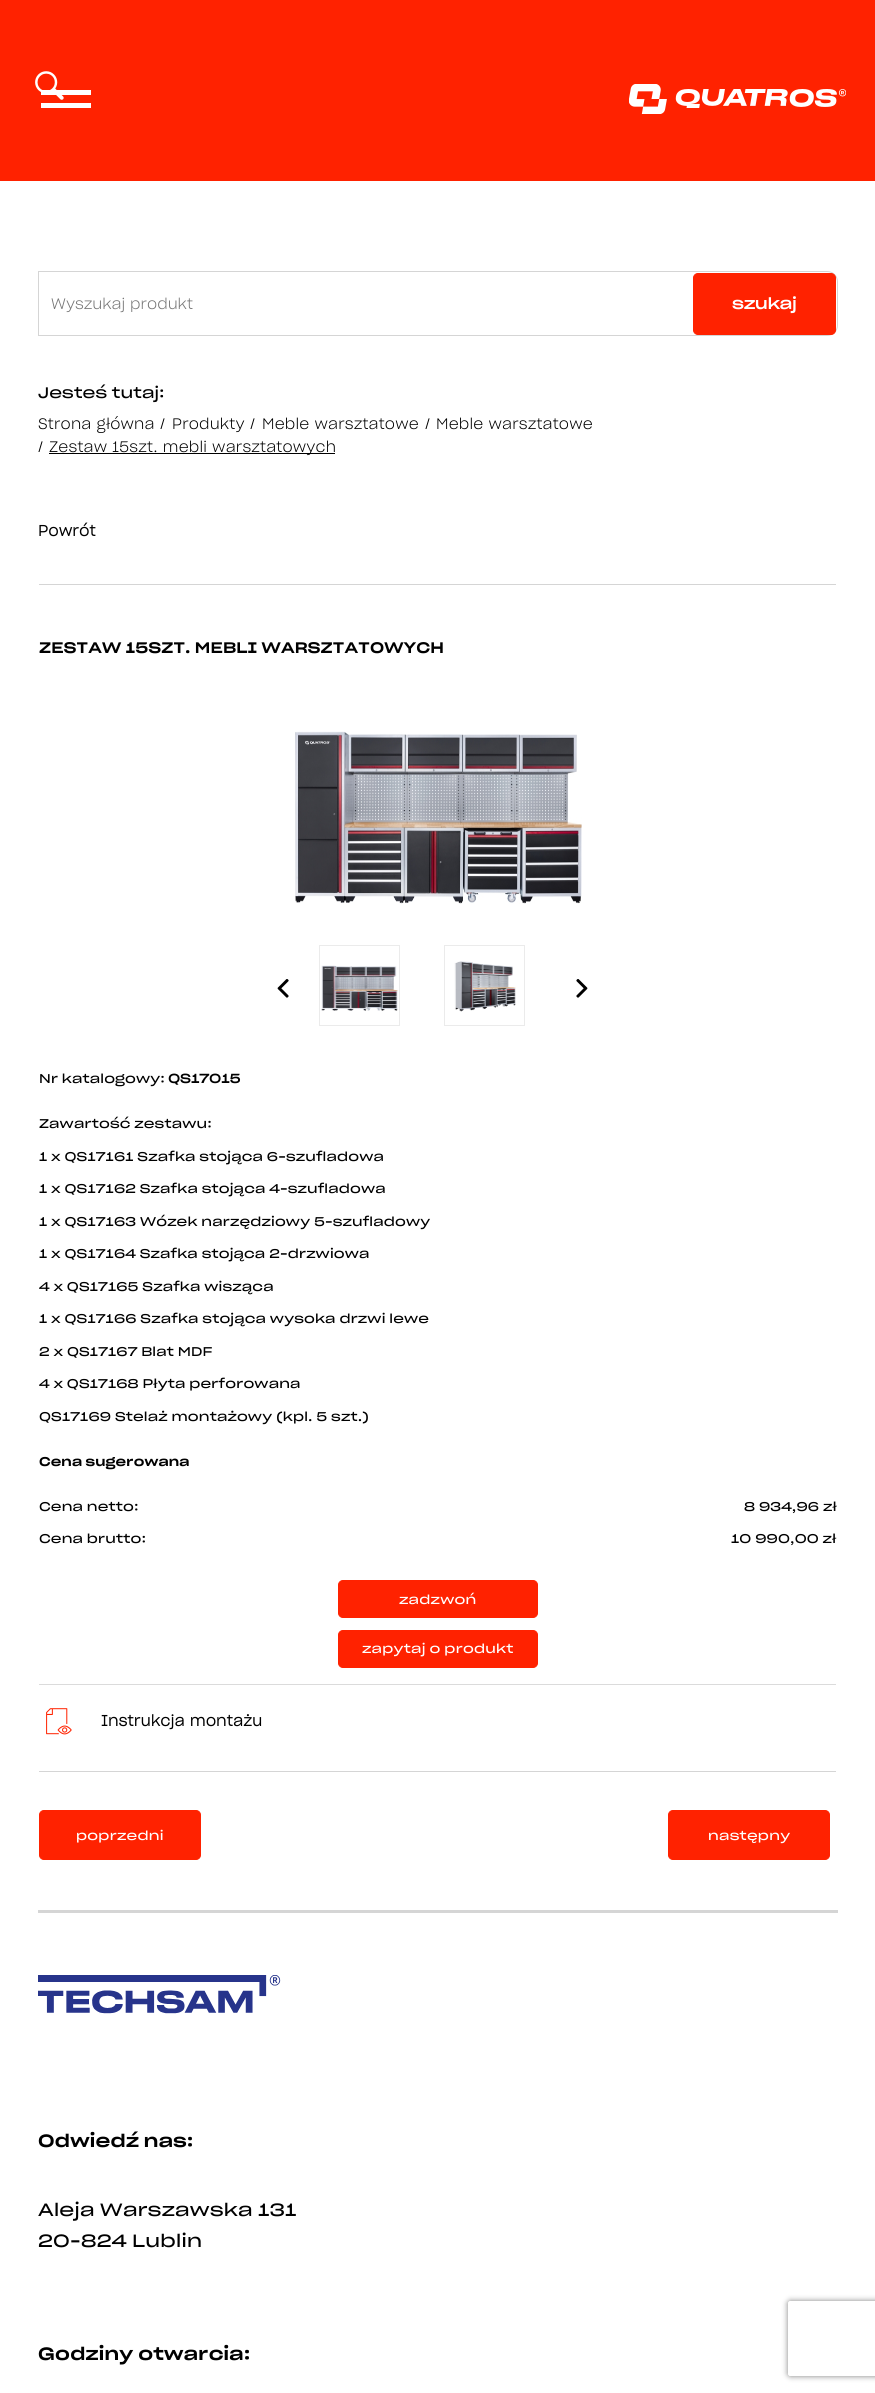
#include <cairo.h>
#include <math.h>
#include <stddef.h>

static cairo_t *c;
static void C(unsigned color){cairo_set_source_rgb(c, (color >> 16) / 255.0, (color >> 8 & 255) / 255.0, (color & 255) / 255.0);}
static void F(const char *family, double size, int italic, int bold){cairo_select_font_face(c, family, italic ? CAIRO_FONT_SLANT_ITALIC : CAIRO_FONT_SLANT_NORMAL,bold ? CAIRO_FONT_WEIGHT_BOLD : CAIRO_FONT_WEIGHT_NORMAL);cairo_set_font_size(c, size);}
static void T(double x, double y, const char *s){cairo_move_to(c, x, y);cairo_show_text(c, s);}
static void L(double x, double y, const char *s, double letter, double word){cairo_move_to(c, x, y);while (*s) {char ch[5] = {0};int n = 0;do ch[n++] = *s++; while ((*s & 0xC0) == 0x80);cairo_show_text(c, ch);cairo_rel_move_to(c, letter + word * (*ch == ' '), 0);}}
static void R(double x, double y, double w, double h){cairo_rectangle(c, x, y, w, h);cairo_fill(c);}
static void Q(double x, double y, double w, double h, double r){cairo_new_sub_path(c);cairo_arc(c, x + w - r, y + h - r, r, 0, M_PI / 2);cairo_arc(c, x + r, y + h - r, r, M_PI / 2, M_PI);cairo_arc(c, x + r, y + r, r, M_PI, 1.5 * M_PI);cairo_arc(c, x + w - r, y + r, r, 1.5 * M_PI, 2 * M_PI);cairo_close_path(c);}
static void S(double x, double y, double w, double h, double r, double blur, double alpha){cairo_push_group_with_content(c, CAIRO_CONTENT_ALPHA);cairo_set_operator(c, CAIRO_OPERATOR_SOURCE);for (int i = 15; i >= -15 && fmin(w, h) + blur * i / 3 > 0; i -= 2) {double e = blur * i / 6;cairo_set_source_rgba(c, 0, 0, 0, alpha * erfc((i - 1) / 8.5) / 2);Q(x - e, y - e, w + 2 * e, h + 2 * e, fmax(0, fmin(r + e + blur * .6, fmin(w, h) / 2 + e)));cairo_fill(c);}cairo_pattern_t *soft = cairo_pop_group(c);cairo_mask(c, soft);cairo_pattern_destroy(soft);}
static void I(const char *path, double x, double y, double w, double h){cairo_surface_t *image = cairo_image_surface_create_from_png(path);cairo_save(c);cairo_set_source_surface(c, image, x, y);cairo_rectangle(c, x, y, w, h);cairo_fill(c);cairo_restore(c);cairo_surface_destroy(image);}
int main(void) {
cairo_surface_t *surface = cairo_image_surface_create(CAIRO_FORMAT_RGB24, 875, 2393);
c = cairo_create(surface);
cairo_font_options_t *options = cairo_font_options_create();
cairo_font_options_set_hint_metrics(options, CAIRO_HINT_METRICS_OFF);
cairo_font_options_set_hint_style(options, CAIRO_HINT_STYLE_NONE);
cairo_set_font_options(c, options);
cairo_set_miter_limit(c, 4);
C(0xffffff);
cairo_paint(c);
C(0xff2200);
R(0,0,875,181);
I("1.png",35,71,29,29);
I("2.png",629,84,217,30);
C(0xffffff);
R(41,90,50,5);
R(41,103,50,5);
cairo_new_path(c);
cairo_move_to(c,38.5,271.5);
cairo_line_to(c,827,271.5);
cairo_curve_to(c,833,271.5,837.5,276,837.5,282);
cairo_line_to(c,837.5,325);
cairo_curve_to(c,837.5,331,833,335.5,827,335.5);
cairo_line_to(c,38.5,335.5);
cairo_close_path(c);
C(0xd5d5d5);
cairo_set_line_width(c,1);
cairo_stroke(c);
F("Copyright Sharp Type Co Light",15,0,0);
C(0x757575);
T(51,309,"Wyszukaj produkt");
C(0xff2200);
Q(693.5,273.5,142,61,4.5);
cairo_fill_preserve(c);
cairo_stroke(c);
F("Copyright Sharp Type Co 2",15,0,1);
C(0xffffff);
T(732,309,"szukaj");
F("Copyright Sharp Type Co",15,0,0);
C(0x000000);
L(38,398,"Jesteś tutaj:",.15,0);
F("Copyright Sharp Type Co Light",15,0,0);
L(38,429,"Strona główna",.15,0);
L(160,429,"/",.15,0);
L(172,429,"Produkty",.15,0);
L(250,429,"/",.15,0);
L(262,429,"Meble warsztatowe",.15,0);
L(425,429,"/",.15,0);
L(436,429,"Meble warsztatowe",.15,0);
L(38,452,"/",.15,0);
R(49,453,286,1);
L(49,452,"Zestaw 15szt. mebli warsztatowych",.15,0);
F("Copyright Sharp Type Co",15,0,1);
L(38,536,"Powrót",.25,0);
C(0xd5d5d5);
R(39,584,797,1);
R(39,1771,797,1);
F("Copyright Sharp Type Co Medium",15,0,0);
C(0x000000);
L(39,653,"ZESTAW 15SZT. MEBLI WARSZTATOWYCH",.2,0);
I("3.png",295,731,287,173);
I("4.png",277,979,12,19);
cairo_rectangle(c,319.5,945.5,80,80);
C(0xebebeb);
cairo_stroke(c);
I("5.png",321,965,77,46);
cairo_rectangle(c,444.5,945.5,80,80);
cairo_stroke(c);
I("6.png",454,961,62,51);
I("7.png",576,979,12,19);
F("Copyright Sharp Type Co",12.5,0,0);
C(0x000000);
L(39,1083,"Nr katalogowy:",.15,0);
F("Copyright Sharp Type Co 2",12.5,0,1);
L(168,1083,"QS17015",.15,0);
F("Copyright Sharp Type Co",12.5,0,0);
L(39,1128,"Zawartość zestawu:",.15,0);
L(39,1161,"1 x QS17161 Szafka stojąca 6-szufladowa",.15,0);
L(39,1193,"1 x QS17162 Szafka stojąca 4-szufladowa",.15,0);
L(39,1226,"1 x QS17163 Wózek narzędziowy 5-szufladowy",.15,0);
L(39,1258,"1 x QS17164 Szafka stojąca 2-drzwiowa",.15,0);
L(39,1291,"4 x QS17165 Szafka wisząca",.15,0);
L(39,1323,"1 x QS17166 Szafka stojąca wysoka drzwi lewe",.15,0);
L(39,1356,"2 x QS17167 Blat MDF",.15,0);
L(39,1388,"4 x QS17168 Płyta perforowana",.15,0);
L(39,1421,"QS17169 Stelaż montażowy (kpl. 5 szt.)",.15,0);
F("Copyright Sharp Type Co Medium",12.5,0,0);
L(39,1466,"Cena sugerowana",.15,0);
F("Copyright Sharp Type Co",12.5,0,0);
L(39,1511,"Cena netto:",.15,0);
L(744,1511,"8 934,96 zł",.15,0);
L(39,1543,"Cena brutto:",.15,0);
L(731,1543,"10 990,00 zł",.15,0);
C(0xff2200);
Q(338.5,1580.5,199,37,4.5);
cairo_fill_preserve(c);
cairo_stroke(c);
C(0xffffff);
L(399,1604,"zadzwoń",.25,0);
C(0xff2200);
Q(338.5,1630.5,199,37,4.5);
cairo_fill_preserve(c);
cairo_stroke(c);
C(0xffffff);
L(362,1653,"zapytaj o produkt",.25,0);
C(0xdbdbdb);
R(39,1684,797,1);
I("8.png",46,1708,26,27);
F("Copyright Sharp Type Co",15,0,1);
C(0x000000);
L(101,1726,"Instrukcja montażu",.25,0);
C(0xff2200);
Q(39.5,1810.5,161,49,4.5);
cairo_fill_preserve(c);
cairo_stroke(c);
F("Copyright Sharp Type Co",12.5,0,0);
C(0xffffff);
L(76,1840,"poprzedni",.25,0);
C(0xff2200);
Q(668.5,1810.5,161,49,4.5);
cairo_fill_preserve(c);
cairo_stroke(c);
C(0xffffff);
L(708,1840,"następny",.25,0);
C(0xd5d5d5);
R(38,1910,800,3);
I("9.png",38,1975,243,39);
F("Copyright Sharp Type Co Medium",17.5,0,0);
C(0x000000);
L(38,2147,"Odwiedź nas:",.25,0);
F("Copyright Sharp Type Co",17.5,0,0);
L(38,2216,"Aleja Warszawska 131",.25,0);
L(38,2247,"20-824 Lublin",.25,0);
F("Copyright Sharp Type Co Medium",17.5,0,0);
L(38,2360,"Godziny otwarcia:",.25,0);
cairo_save(c);
cairo_set_fill_rule(c,CAIRO_FILL_RULE_EVEN_ODD);
cairo_new_path(c);
cairo_move_to(c,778,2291);
cairo_line_to(c,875,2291);
cairo_line_to(c,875,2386);
cairo_line_to(c,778,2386);
cairo_close_path(c);
cairo_move_to(c,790.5,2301);
cairo_line_to(c,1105.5,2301);
cairo_curve_to(c,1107,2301,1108,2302,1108,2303.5);
cairo_line_to(c,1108,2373.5);
cairo_curve_to(c,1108,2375,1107,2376,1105.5,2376);
cairo_line_to(c,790.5,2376);
cairo_curve_to(c,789,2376,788,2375,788,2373.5);
cairo_line_to(c,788,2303.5);
cairo_curve_to(c,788,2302,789,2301,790.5,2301);
cairo_close_path(c);
cairo_clip(c);
C(0x808080);
S(788,2301,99,75,2.5,3,1);
cairo_restore(c);
cairo_surface_write_to_png(surface, "o.png");
cairo_font_options_destroy(options);
cairo_destroy(c);
cairo_surface_destroy(surface);
return 0;
}
